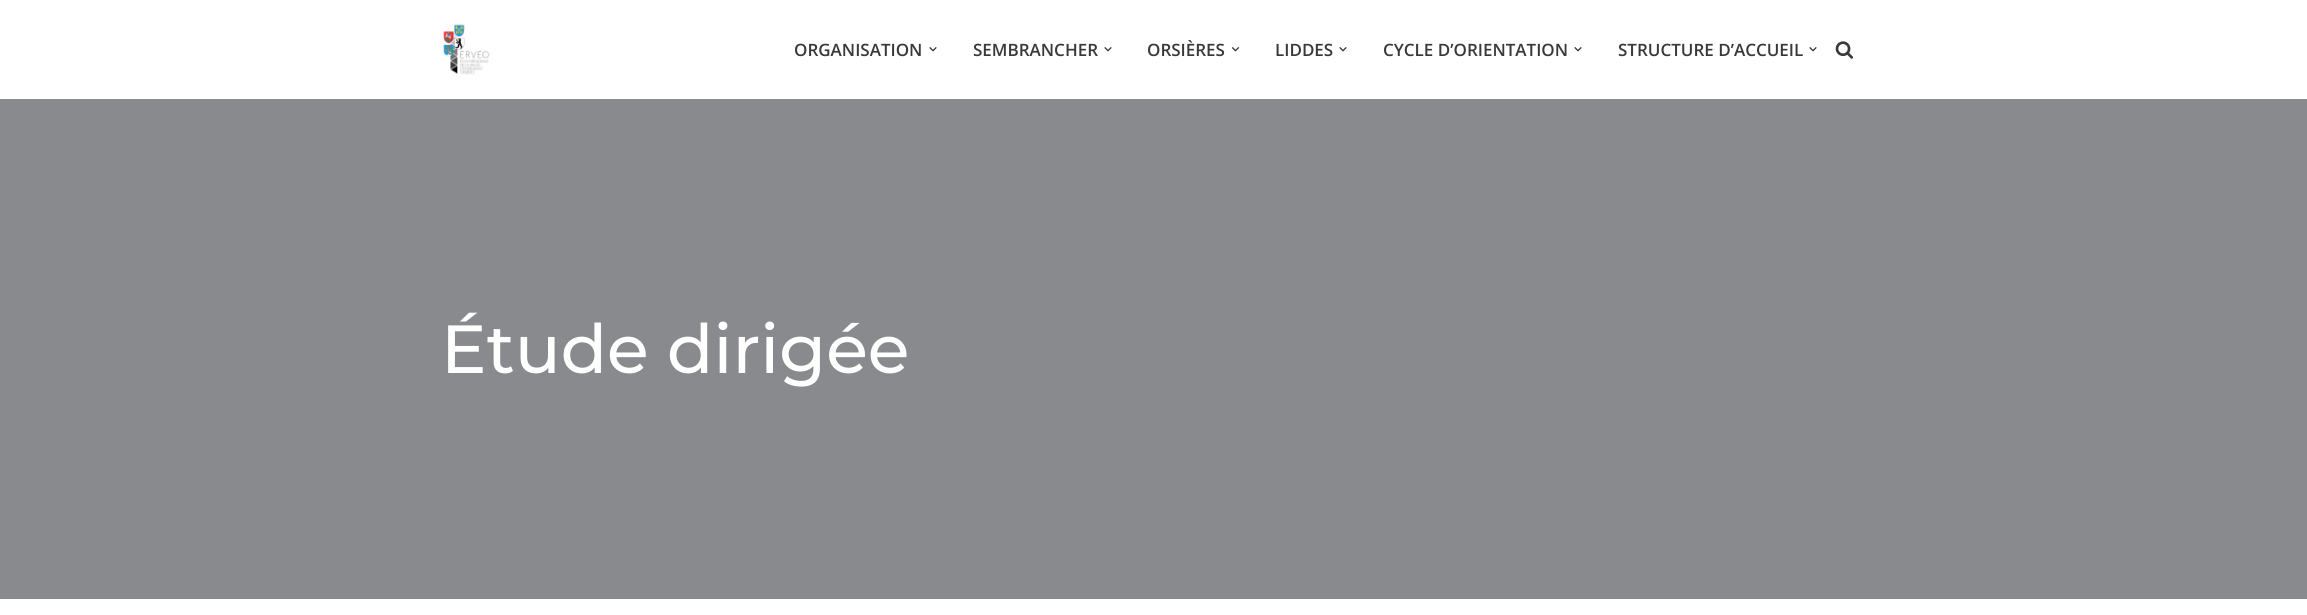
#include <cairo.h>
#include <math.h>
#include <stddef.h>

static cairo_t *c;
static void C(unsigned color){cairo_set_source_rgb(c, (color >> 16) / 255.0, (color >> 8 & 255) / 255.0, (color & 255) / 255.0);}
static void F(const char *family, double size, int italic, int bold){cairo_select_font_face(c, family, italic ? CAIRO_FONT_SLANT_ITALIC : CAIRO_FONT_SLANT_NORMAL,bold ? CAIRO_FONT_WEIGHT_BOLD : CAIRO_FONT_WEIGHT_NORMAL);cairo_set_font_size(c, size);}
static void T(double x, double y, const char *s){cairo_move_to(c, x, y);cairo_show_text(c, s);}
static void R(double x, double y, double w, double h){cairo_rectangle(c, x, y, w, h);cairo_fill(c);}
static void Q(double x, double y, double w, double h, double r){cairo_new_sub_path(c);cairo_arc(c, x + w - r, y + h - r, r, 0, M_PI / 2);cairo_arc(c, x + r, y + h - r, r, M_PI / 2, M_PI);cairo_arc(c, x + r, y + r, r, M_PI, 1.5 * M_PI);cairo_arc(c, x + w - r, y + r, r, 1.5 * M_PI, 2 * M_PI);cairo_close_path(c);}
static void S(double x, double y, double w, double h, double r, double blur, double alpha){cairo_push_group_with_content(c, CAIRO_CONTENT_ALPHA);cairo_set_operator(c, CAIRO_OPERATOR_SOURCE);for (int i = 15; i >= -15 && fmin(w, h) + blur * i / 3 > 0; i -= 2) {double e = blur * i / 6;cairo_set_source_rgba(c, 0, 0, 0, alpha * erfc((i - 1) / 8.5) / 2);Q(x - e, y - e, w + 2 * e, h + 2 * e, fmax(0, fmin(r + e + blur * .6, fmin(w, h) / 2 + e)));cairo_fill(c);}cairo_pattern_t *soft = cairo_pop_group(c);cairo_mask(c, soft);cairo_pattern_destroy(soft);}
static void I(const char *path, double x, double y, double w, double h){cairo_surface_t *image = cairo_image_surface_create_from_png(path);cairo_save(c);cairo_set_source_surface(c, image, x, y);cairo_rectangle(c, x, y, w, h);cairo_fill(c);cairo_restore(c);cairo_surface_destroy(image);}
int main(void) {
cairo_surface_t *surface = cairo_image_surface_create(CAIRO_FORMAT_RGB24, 2307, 615);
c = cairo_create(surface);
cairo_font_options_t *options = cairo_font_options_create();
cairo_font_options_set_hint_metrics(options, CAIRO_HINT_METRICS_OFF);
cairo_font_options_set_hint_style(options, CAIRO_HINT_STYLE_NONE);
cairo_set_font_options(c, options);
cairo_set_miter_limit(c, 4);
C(0xffffff);
cairo_paint(c);
C(0x000000);
S(0,-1,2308,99,0,2,.1);
C(0xffffff);
R(0,0,2307,99);
I("1.png",443,24,47,51);
F("Open Sans SemiBold",17,0,0);
C(0x393939);
T(794,56,"ORGANISATION");
I("2.png",929,47,8,5);
T(973,56,"SEMBRANCHER");
I("2.png",1104,47,8,5);
T(1147,56,"ORSIÈRES");
I("3.png",1231,47,9,5);
T(1275,56,"LIDDES");
I("2.png",1339,47,8,5);
T(1383,56,"CYCLE D’ORIENTATION");
I("2.png",1574,47,8,5);
T(1618,56,"STRUCTURE D’ACCUEIL");
I("2.png",1809,47,8,5);
I("4.png",1835,41,19,18);
cairo_set_source_rgba(c,0.078,0.09,0.11,0.5);
R(0,99,2307,500);
F("Montserrat Medium",68,0,0);
C(0xffffff);
T(441,373,"Étude dirigée");
cairo_surface_write_to_png(surface, "o.png");
cairo_font_options_destroy(options);
cairo_destroy(c);
cairo_surface_destroy(surface);
return 0;
}
